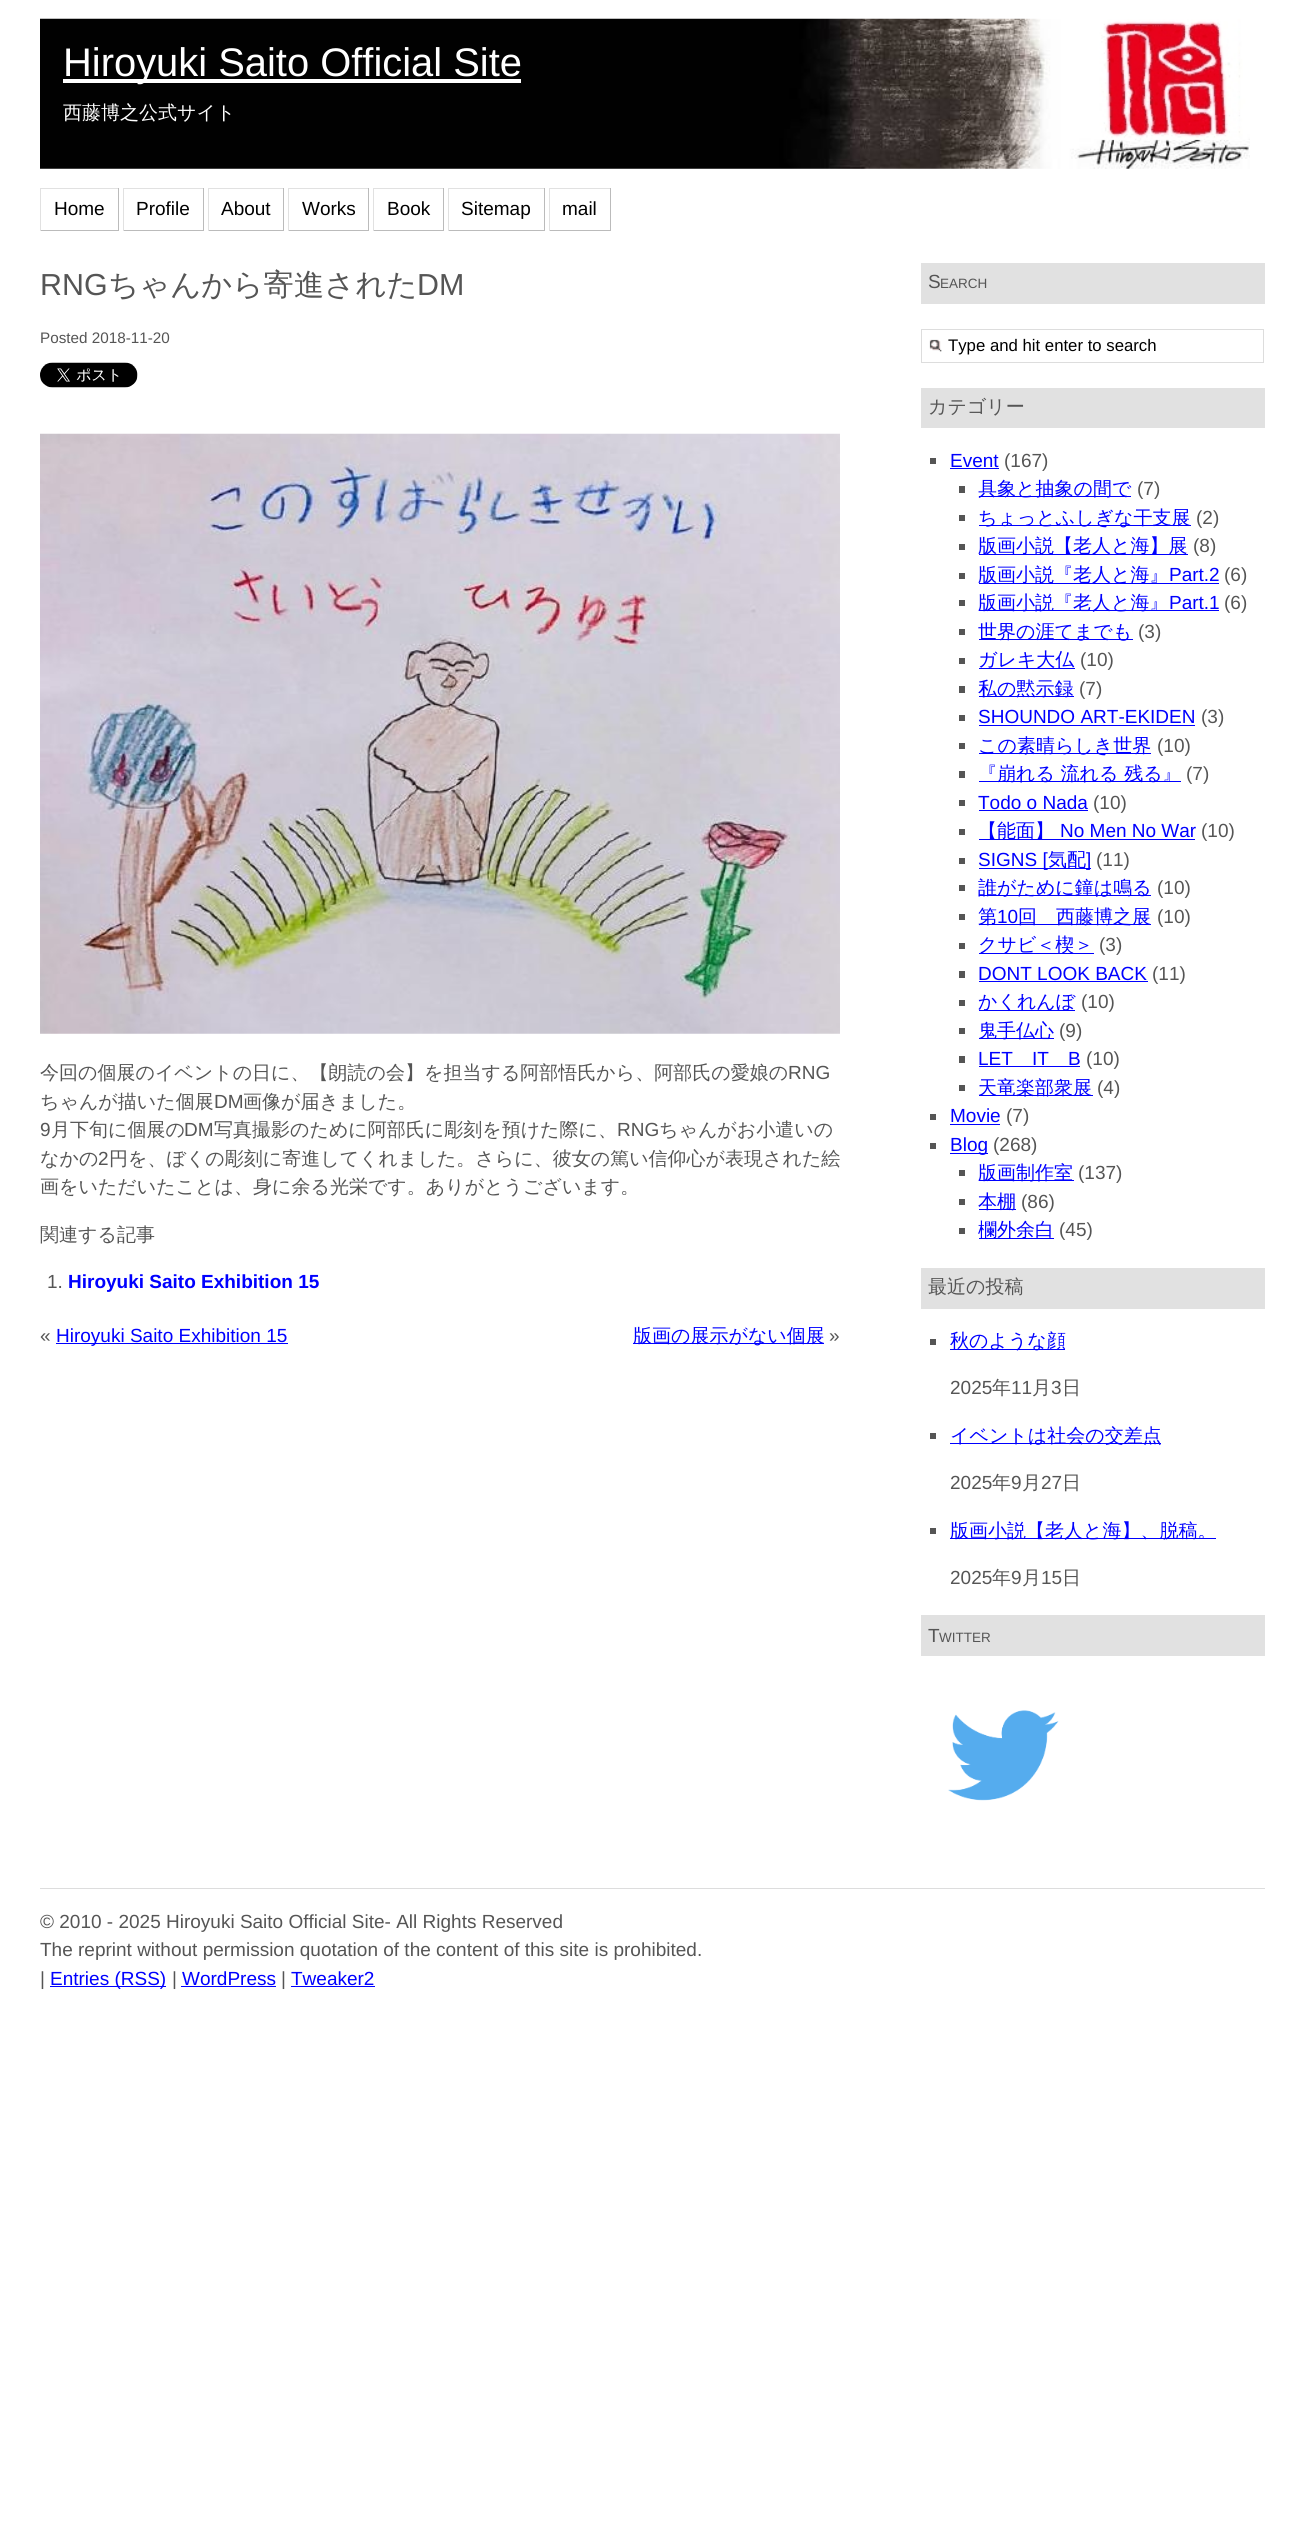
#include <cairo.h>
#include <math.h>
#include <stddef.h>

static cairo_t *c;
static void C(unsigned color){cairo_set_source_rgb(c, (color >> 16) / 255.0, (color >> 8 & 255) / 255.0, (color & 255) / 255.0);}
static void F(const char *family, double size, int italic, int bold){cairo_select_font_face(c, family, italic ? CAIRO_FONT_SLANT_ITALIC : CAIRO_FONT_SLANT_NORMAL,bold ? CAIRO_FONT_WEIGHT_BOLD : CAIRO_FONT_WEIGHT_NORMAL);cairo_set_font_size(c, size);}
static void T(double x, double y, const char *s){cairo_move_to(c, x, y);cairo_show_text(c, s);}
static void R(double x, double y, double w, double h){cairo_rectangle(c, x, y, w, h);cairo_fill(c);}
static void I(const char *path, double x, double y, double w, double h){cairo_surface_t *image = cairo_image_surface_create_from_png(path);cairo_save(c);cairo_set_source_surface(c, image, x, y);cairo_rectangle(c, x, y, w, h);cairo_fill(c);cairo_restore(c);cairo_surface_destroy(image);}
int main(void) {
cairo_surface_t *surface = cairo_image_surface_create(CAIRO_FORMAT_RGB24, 1305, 2534);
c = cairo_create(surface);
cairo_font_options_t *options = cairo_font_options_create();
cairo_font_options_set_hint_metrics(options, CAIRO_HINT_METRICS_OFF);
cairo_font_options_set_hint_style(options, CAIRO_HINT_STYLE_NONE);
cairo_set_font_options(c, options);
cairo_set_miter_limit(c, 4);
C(0xffffff);
cairo_paint(c);
I("1.png",40,18,1210,151);
C(0xffffff);
R(63,79,458,4);
F("Liberation Sans",39.9,0,0);
T(63,76,"Hiroyuki Saito Official Site");
F("WenQuanYi Zen Hei Medium",19,0,0);
T(63,119,"西藤博之公式サイト");
C(0xe1e1e1);
R(40,188,79,1);
C(0xbbbbbb);
R(118,188,1,43);
R(40,230,79,1);
C(0xe1e1e1);
R(40,188,1,43);
F("Liberation Sans",19,0,0);
C(0x000000);
T(54,215,"Home");
C(0xe1e1e1);
R(123,188,81,1);
C(0xbbbbbb);
R(203,188,1,43);
R(123,230,81,1);
C(0xe1e1e1);
R(123,188,1,43);
C(0x000000);
T(136,215,"Profile");
C(0xe1e1e1);
R(208,188,76,1);
C(0xbbbbbb);
R(283,188,1,43);
R(208,230,76,1);
C(0xe1e1e1);
R(208,188,1,43);
C(0x000000);
T(221,215,"About");
C(0xe1e1e1);
R(288,188,81,1);
C(0xbbbbbb);
R(368,188,1,43);
R(288,230,81,1);
C(0xe1e1e1);
R(288,188,1,43);
C(0x000000);
T(302,215,"Works");
C(0xe1e1e1);
R(373,188,71,1);
C(0xbbbbbb);
R(443,188,1,43);
R(373,230,71,1);
C(0xe1e1e1);
R(373,188,1,43);
C(0x000000);
T(387,215,"Book");
C(0xe1e1e1);
R(448,188,97,1);
C(0xbbbbbb);
R(544,188,1,43);
R(448,230,97,1);
C(0xe1e1e1);
R(448,188,1,43);
C(0x000000);
T(461,215,"Sitemap");
C(0xe1e1e1);
R(549,188,62,1);
C(0xbbbbbb);
R(610,188,1,43);
R(549,230,62,1);
C(0xe1e1e1);
R(549,188,1,43);
C(0x000000);
T(562,215,"mail");
F("Liberation Sans",30.4,0,0);
C(0x555555);
T(40,295,"RNG");
F("WenQuanYi Zen Hei Medium",30.4,0,0);
T(108,295,"ちゃんから寄進された");
F("Liberation Sans",30.4,0,0);
T(417,295,"DM");
F("Liberation Sans",15.25,0,0);
T(40,343,"Posted 2018-11-20");
I("2.png",40,362,98,26);
I("3.png",40,433,800,601);
F("WenQuanYi Zen Hei Medium",19,0,0);
T(40,1079,"今回の個展のイベントの日に、【朗読の会】を担当する阿部悟氏から、阿部氏の愛娘の");
F("Liberation Sans",19,0,0);
T(788,1079,"RNG");
F("WenQuanYi Zen Hei Medium",19,0,0);
T(40,1108,"ちゃんが描いた個展");
F("Liberation Sans",19,0,0);
T(214,1108,"DM");
F("WenQuanYi Zen Hei Medium",19,0,0);
T(243,1108,"画像が届きました。");
F("Liberation Sans",19,0,0);
T(40,1136,"9");
F("WenQuanYi Zen Hei Medium",19,0,0);
T(51,1136,"月下旬に個展の");
F("Liberation Sans",19,0,0);
T(184,1136,"DM");
F("WenQuanYi Zen Hei Medium",19,0,0);
T(214,1136,"写真撮影のために阿部氏に彫刻を預けた際に、");
F("Liberation Sans",19,0,0);
T(617,1136,"RNG");
F("WenQuanYi Zen Hei Medium",19,0,0);
T(659,1136,"ちゃんがお小遣いの");
T(40,1165,"なかの");
F("Liberation Sans",19,0,0);
T(98,1165,"2");
F("WenQuanYi Zen Hei Medium",19,0,0);
T(109,1165,"円を、ぼくの彫刻に寄進してくれました。さらに、彼女の篤い信仰心が表現された絵");
T(40,1193,"画をいただいたことは、身に余る光栄です。ありがとうございます。");
T(40,1241,"関連する記事");
F("Liberation Sans",19,0,0);
T(47,1288,"1.");
F("Liberation Sans",19,0,1);
C(0x0000ff);
T(68,1288,"Hiroyuki Saito Exhibition 15");
F("Liberation Sans",19,0,0);
C(0x555555);
T(40,1342,"«");
C(0x0000ff);
R(56,1343,232,1);
T(56,1342,"Hiroyuki Saito Exhibition 15");
R(633,1343,191,1);
F("WenQuanYi Zen Hei Medium",19,0,0);
T(633,1342,"版画の展示がない個展");
F("Liberation Sans",19,0,0);
C(0x555555);
T(829,1342,"»");
C(0xe1e1e1);
R(921,263,344,41);
C(0x555555);
T(928,288,"S");
F("Liberation Sans",13.5,0,0);
T(940,288,"EARCH");
I("4.png",929,339,13,13);
cairo_rectangle(c,921.5,329.5,342,33);
C(0xdddddd);
cairo_set_line_width(c,1);
cairo_stroke(c);
F("Liberation Sans",16.75,0,0);
C(0x000000);
T(948,351,"Type and hit enter to search");
C(0xe1e1e1);
R(921,388,344,40);
F("WenQuanYi Zen Hei Medium",19,0,0);
C(0x555555);
T(928,413,"カテゴリー");
R(930,458,6,6);
F("Liberation Sans",19,0,0);
C(0x0000ff);
T(950,467,"Event");
R(950,468,49,1);
C(0x555555);
T(1004,467,"(167)");
R(959,486,6,7);
C(0x0000ff);
R(979,496,152,1);
F("WenQuanYi Zen Hei Medium",19,0,0);
T(978,495,"具象と抽象の間で");
F("Liberation Sans",19,0,0);
C(0x555555);
T(1137,495,"(7)");
R(959,515,6,6);
C(0x0000ff);
R(979,525,212,1);
F("WenQuanYi Zen Hei Medium",19,0,0);
T(978,524,"ちょっとふしぎな干支展");
F("Liberation Sans",19,0,0);
C(0x555555);
T(1196,524,"(2)");
R(959,544,6,6);
C(0x0000ff);
R(979,554,209,1);
F("WenQuanYi Zen Hei Medium",19,0,0);
T(978,552,"版画小説【老人と海】展");
F("Liberation Sans",19,0,0);
C(0x555555);
T(1193,552,"(8)");
R(959,573,6,6);
C(0x0000ff);
R(979,583,240,1);
F("WenQuanYi Zen Hei Medium",19,0,0);
T(978,581,"版画小説『老人と海』");
F("Liberation Sans",19,0,0);
T(1169,581,"Part.2");
C(0x555555);
T(1224,581,"(6)");
R(959,600,6,6);
C(0x0000ff);
R(979,610,240,1);
F("WenQuanYi Zen Hei Medium",19,0,0);
T(978,609,"版画小説『老人と海』");
F("Liberation Sans",19,0,0);
T(1169,609,"Part.1");
C(0x555555);
T(1224,609,"(6)");
R(959,629,6,6);
C(0x0000ff);
R(979,639,154,1);
F("WenQuanYi Zen Hei Medium",19,0,0);
T(978,638,"世界の涯てまでも");
F("Liberation Sans",19,0,0);
C(0x555555);
T(1138,638,"(3)");
R(959,658,6,6);
C(0x0000ff);
R(979,668,96,1);
F("WenQuanYi Zen Hei Medium",19,0,0);
T(978,666,"ガレキ大仏");
F("Liberation Sans",19,0,0);
C(0x555555);
T(1080,666,"(10)");
R(959,686,6,7);
C(0x0000ff);
R(979,696,95,1);
F("WenQuanYi Zen Hei Medium",19,0,0);
T(978,695,"私の黙示録");
F("Liberation Sans",19,0,0);
C(0x555555);
T(1079,695,"(7)");
R(959,715,6,6);
C(0x0000ff);
T(978,723,"SHOUNDO ART-EKIDEN");
R(979,725,216,1);
C(0x555555);
T(1201,723,"(3)");
R(959,743,6,6);
C(0x0000ff);
R(979,753,172,1);
F("WenQuanYi Zen Hei Medium",19,0,0);
T(978,752,"この素晴らしき世界");
F("Liberation Sans",19,0,0);
C(0x555555);
T(1157,752,"(10)");
R(959,771,6,7);
C(0x0000ff);
R(979,781,202,1);
F("WenQuanYi Zen Hei Medium",19,0,0);
T(978,780,"『崩れる 流れる 残る』");
F("Liberation Sans",19,0,0);
C(0x555555);
T(1186,780,"(7)");
R(959,800,6,6);
C(0x0000ff);
T(978,809,"Todo o Nada");
R(979,810,109,1);
C(0x555555);
T(1093,809,"(10)");
R(959,829,6,6);
C(0x0000ff);
R(979,839,216,1);
F("WenQuanYi Zen Hei Medium",19,0,0);
T(978,837,"【能面】");
F("Liberation Sans",19,0,0);
T(1060,837,"No Men No War");
C(0x555555);
T(1201,837,"(10)");
R(959,858,6,6);
C(0x0000ff);
R(979,868,112,1);
T(978,866,"SIGNS [");
F("WenQuanYi Zen Hei Medium",19,0,0);
T(1048,866,"気配");
F("Liberation Sans",19,0,0);
T(1086,866,"]");
C(0x555555);
T(1096,866,"(11)");
R(959,885,6,6);
C(0x0000ff);
R(979,895,172,1);
F("WenQuanYi Zen Hei Medium",19,0,0);
T(978,894,"誰がために鐘は鳴る");
F("Liberation Sans",19,0,0);
C(0x555555);
T(1157,894,"(10)");
R(959,914,6,6);
C(0x0000ff);
R(979,924,172,1);
F("WenQuanYi Zen Hei Medium",19,0,0);
T(978,923,"第");
F("Liberation Sans",19,0,0);
T(997,923,"10");
F("WenQuanYi Zen Hei Medium",19,0,0);
T(1018,923,"回　西藤博之展");
F("Liberation Sans",19,0,0);
C(0x555555);
T(1157,923,"(10)");
R(959,943,6,6);
C(0x0000ff);
R(979,953,115,1);
F("WenQuanYi Zen Hei Medium",19,0,0);
T(978,951,"クサビ＜楔＞");
F("Liberation Sans",19,0,0);
C(0x555555);
T(1099,951,"(3)");
R(959,971,6,7);
C(0x0000ff);
T(978,980,"DONT LOOK BACK");
R(979,981,169,1);
C(0x555555);
T(1152,980,"(11)");
R(959,1000,6,6);
C(0x0000ff);
R(979,1010,96,1);
F("WenQuanYi Zen Hei Medium",19,0,0);
T(978,1008,"かくれんぼ");
F("Liberation Sans",19,0,0);
C(0x555555);
T(1081,1008,"(10)");
R(959,1028,6,6);
C(0x0000ff);
R(979,1038,75,1);
F("WenQuanYi Zen Hei Medium",19,0,0);
T(978,1037,"鬼手仏心");
F("Liberation Sans",19,0,0);
C(0x555555);
T(1059,1037,"(9)");
R(959,1056,6,7);
C(0x0000ff);
T(978,1065,"LET");
R(979,1066,101,1);
T(1032,1065,"IT");
T(1068,1065,"B");
C(0x555555);
T(1086,1065,"(10)");
R(959,1085,6,6);
C(0x0000ff);
R(979,1095,114,1);
F("WenQuanYi Zen Hei Medium",19,0,0);
T(978,1094,"天竜楽部衆展");
F("Liberation Sans",19,0,0);
C(0x555555);
T(1097,1094,"(4)");
R(930,1114,6,6);
C(0x0000ff);
T(950,1122,"Movie");
R(950,1124,50,1);
C(0x555555);
T(1006,1122,"(7)");
R(930,1143,6,6);
C(0x0000ff);
R(950,1153,38,1);
T(950,1151,"Blog");
C(0x555555);
T(993,1151,"(268)");
R(959,1170,6,6);
C(0x0000ff);
R(979,1180,95,1);
F("WenQuanYi Zen Hei Medium",19,0,0);
T(978,1179,"版画制作室");
F("Liberation Sans",19,0,0);
C(0x555555);
T(1078,1179,"(137)");
R(959,1199,6,6);
C(0x0000ff);
R(979,1209,37,1);
F("WenQuanYi Zen Hei Medium",19,0,0);
T(978,1208,"本棚");
F("Liberation Sans",19,0,0);
C(0x555555);
T(1021,1208,"(86)");
R(959,1228,6,6);
C(0x0000ff);
R(979,1238,75,1);
F("WenQuanYi Zen Hei Medium",19,0,0);
T(978,1236,"欄外余白");
F("Liberation Sans",19,0,0);
C(0x555555);
T(1059,1236,"(45)");
C(0xe1e1e1);
R(921,1268,344,41);
F("WenQuanYi Zen Hei Medium",19,0,0);
C(0x555555);
T(928,1293,"最近の投稿");
R(930,1339,6,6);
C(0x0000ff);
R(950,1349,115,1);
T(950,1347,"秋のような顔");
F("Liberation Sans",19,0,0);
C(0x555555);
T(950,1394,"2025");
F("WenQuanYi Zen Hei Medium",19,0,0);
T(992,1394,"年");
F("Liberation Sans",19,0,0);
T(1011,1394,"11");
F("WenQuanYi Zen Hei Medium",19,0,0);
T(1032,1394,"月");
F("Liberation Sans",19,0,0);
T(1051,1394,"3");
F("WenQuanYi Zen Hei Medium",19,0,0);
T(1062,1394,"日");
R(930,1433,6,6);
C(0x0000ff);
R(950,1443,211,1);
T(950,1442,"イベントは社会の交差点");
F("Liberation Sans",19,0,0);
C(0x555555);
T(950,1489,"2025");
F("WenQuanYi Zen Hei Medium",19,0,0);
T(992,1489,"年");
F("Liberation Sans",19,0,0);
T(1011,1489,"9");
F("WenQuanYi Zen Hei Medium",19,0,0);
T(1022,1489,"月");
F("Liberation Sans",19,0,0);
T(1041,1489,"27");
F("WenQuanYi Zen Hei Medium",19,0,0);
T(1062,1489,"日");
R(930,1528,6,6);
C(0x0000ff);
R(950,1538,266,1);
T(950,1537,"版画小説【老人と海】、脱稿。");
F("Liberation Sans",19,0,0);
C(0x555555);
T(950,1584,"2025");
F("WenQuanYi Zen Hei Medium",19,0,0);
T(992,1584,"年");
F("Liberation Sans",19,0,0);
T(1011,1584,"9");
F("WenQuanYi Zen Hei Medium",19,0,0);
T(1022,1584,"月");
F("Liberation Sans",19,0,0);
T(1041,1584,"15");
F("WenQuanYi Zen Hei Medium",19,0,0);
T(1062,1584,"日");
C(0xe1e1e1);
R(921,1615,344,41);
F("Liberation Sans",19,0,0);
C(0x555555);
T(928,1642,"T");
F("Liberation Sans",13.5,0,0);
T(939,1642,"WITTER");
I("5.png",948,1710,111,91);
C(0xdddddd);
R(40,1888,1225,1);
F("Liberation Sans",19,0,0);
C(0x555555);
T(40,1928,"© 2010 - 2025 Hiroyuki Saito Official Site- All Rights Reserved");
T(40,1956,"The reprint without permission quotation of the content of this site is prohibited.");
T(40,1985,"|");
C(0x0000ff);
R(50,1986,116,1);
T(50,1985,"Entries (RSS)");
C(0x555555);
T(172,1985,"|");
C(0x0000ff);
T(182,1985,"WordPress");
R(181,1986,95,1);
C(0x555555);
T(281,1985,"|");
C(0x0000ff);
T(291,1985,"Tweaker2");
R(291,1986,84,1);
cairo_surface_write_to_png(surface, "o.png");
cairo_font_options_destroy(options);
cairo_destroy(c);
cairo_surface_destroy(surface);
return 0;
}
